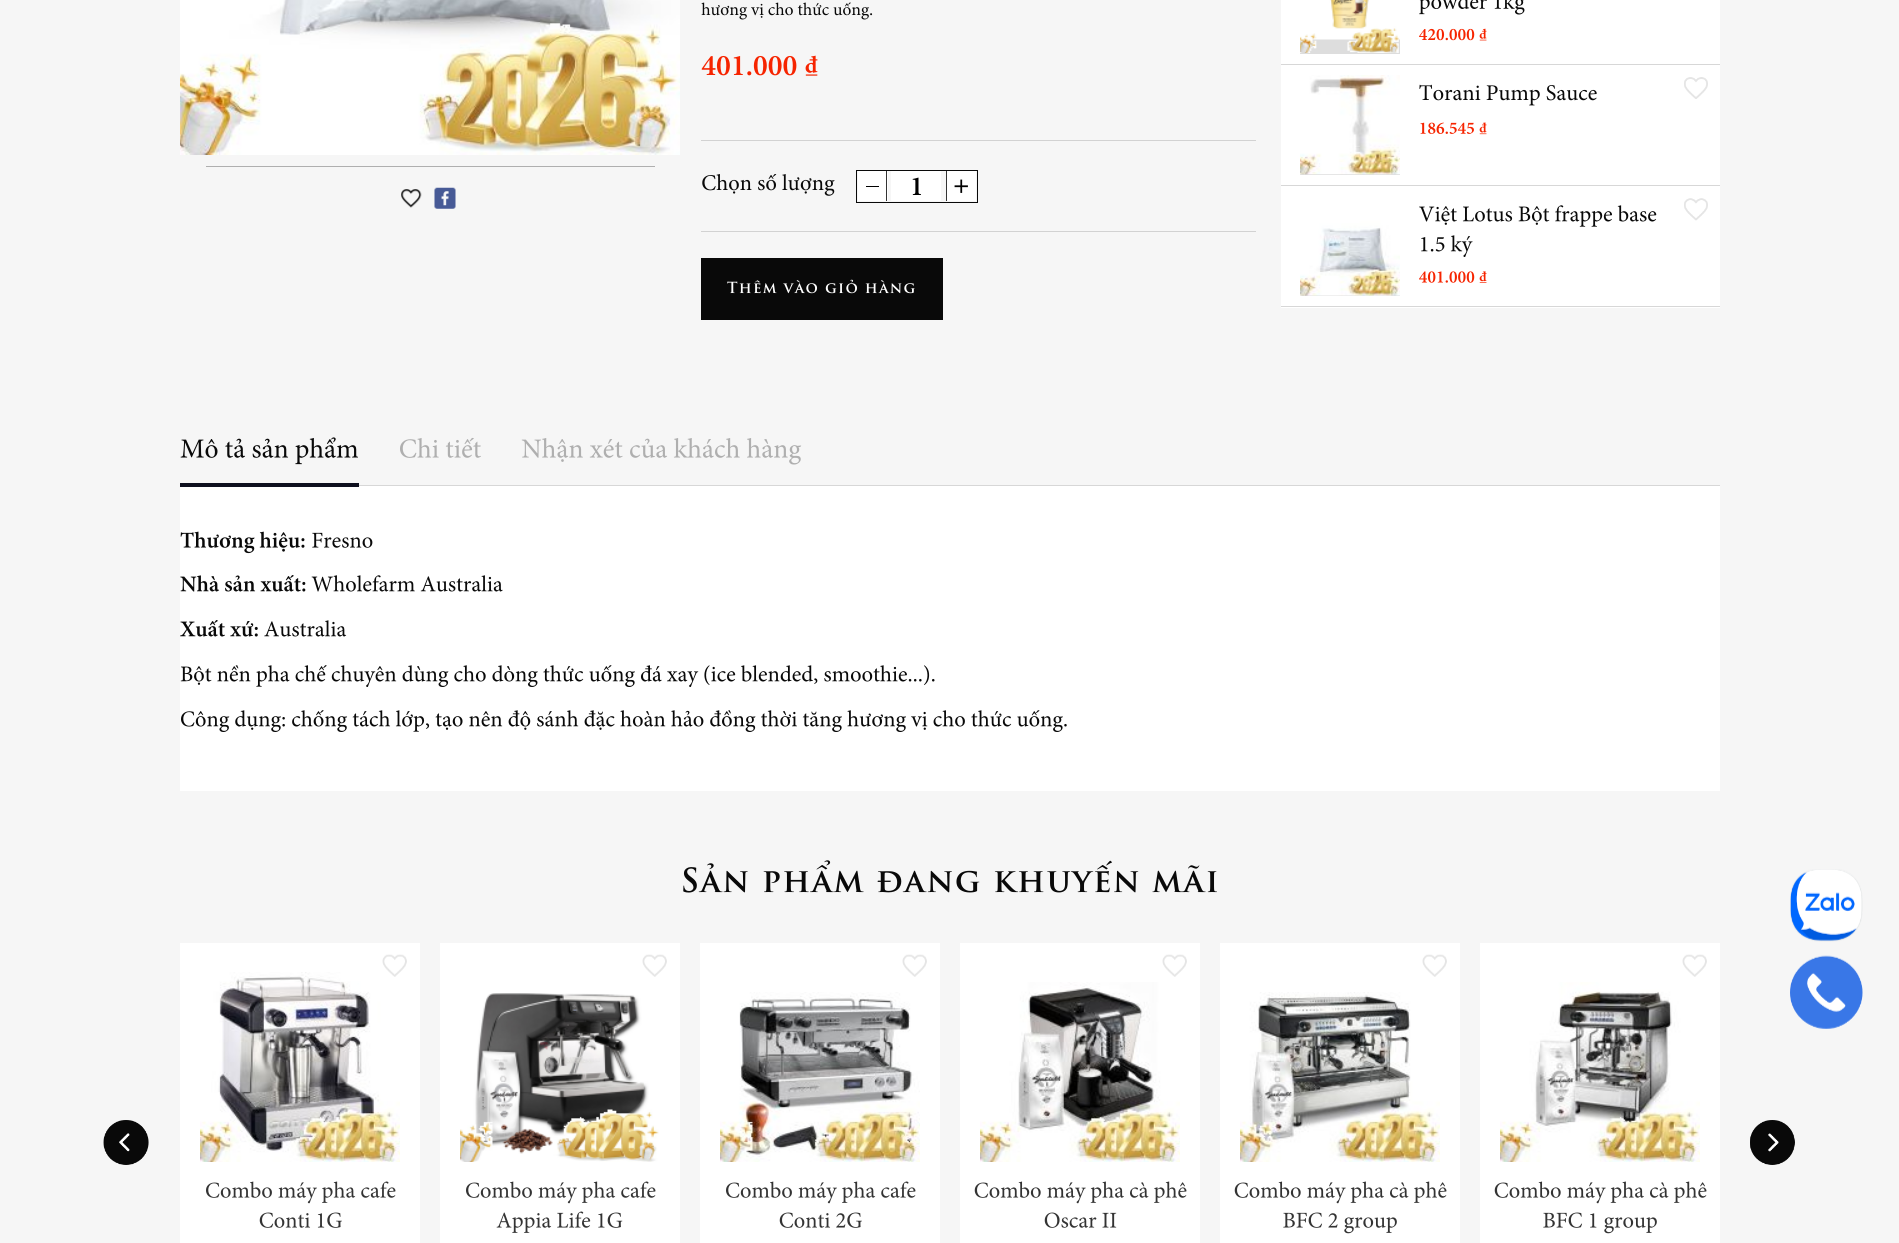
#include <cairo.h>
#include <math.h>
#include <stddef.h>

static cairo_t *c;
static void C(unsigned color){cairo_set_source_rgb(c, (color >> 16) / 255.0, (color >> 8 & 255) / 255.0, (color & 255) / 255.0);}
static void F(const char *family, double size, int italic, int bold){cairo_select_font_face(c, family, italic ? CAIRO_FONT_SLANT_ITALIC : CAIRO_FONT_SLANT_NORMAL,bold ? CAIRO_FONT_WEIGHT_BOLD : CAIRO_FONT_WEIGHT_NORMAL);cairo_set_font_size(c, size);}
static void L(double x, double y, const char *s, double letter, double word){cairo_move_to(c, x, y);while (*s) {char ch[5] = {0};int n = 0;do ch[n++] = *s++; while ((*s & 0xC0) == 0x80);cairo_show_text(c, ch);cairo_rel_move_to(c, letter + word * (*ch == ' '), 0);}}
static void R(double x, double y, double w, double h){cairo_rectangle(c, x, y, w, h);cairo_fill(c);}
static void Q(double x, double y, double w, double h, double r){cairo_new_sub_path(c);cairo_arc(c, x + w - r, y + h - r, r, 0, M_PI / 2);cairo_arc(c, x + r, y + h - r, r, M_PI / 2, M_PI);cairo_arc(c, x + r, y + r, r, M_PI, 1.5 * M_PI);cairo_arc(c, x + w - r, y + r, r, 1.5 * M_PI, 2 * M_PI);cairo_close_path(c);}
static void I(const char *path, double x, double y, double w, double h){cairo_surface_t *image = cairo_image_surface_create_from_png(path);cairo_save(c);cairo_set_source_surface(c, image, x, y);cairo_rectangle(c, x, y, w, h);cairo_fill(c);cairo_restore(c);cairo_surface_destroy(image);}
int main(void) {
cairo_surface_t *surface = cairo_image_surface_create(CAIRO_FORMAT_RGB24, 1899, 1243);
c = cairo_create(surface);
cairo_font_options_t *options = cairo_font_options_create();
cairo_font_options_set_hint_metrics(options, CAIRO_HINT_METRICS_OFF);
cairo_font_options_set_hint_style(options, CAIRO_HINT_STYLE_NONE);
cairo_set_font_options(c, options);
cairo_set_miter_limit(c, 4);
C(0xf6f6f6);
cairo_paint(c);
I("1.png",180,0,500,155);
C(0xafafaf);
R(206,166,449,1);
I("2.png",401,189,21,19);
I("3.png",434,187,22,22);
I("4.png",701,2,172,18);
I("5.png",701,55,117,21);
C(0xd2d2d2);
R(701,140,555,1);
R(701,231,555,1);
I("6.png",702,174,133,22);
cairo_rectangle(c,856.5,170.5,121,32);
C(0x090909);
cairo_set_line_width(c,1);
cairo_stroke(c);
C(0xffffff);
R(858,171,30,30);
C(0x000000);
R(866,186,13,1);
C(0x333333);
R(886,171,1,30);
C(0xffffff);
Q(891,171,50,30,1);
cairo_fill(c);
I("7.png",912,177,9,18);
R(947,171,29,30);
I("8.png",954,179,14,14);
C(0x333333);
R(946,171,1,30);
C(0x090909);
R(701,258,242,62);
F("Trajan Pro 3 SemiBold",15,0,0);
C(0xffffff);
L(727,293,"Thêm vào giỏ hàng",1.25,0);
R(1281,0,439,64);
C(0xdddddd);
R(1300,39,100,15);
I("9.png",1300,0,100,53);
I("10.png",1419,0,106,15);
I("11.png",1419,28,68,13);
C(0xffffff);
R(1281,65,439,120);
C(0xd7d7d7);
R(1281,64,439,1);
C(0xdddddd);
R(1300,174,100,1);
I("12.png",1300,75,100,100);
I("13.png",1419,84,178,22);
I("14.png",1684,77,24,22);
I("15.png",1420,122,67,13);
C(0xffffff);
R(1281,186,439,120);
C(0xd7d7d7);
R(1281,185,439,1);
C(0xdddddd);
R(1300,295,100,1);
I("16.png",1300,196,100,100);
I("17.png",1419,205,238,22);
I("18.png",1421,235,52,22);
I("19.png",1684,198,24,23);
I("20.png",1419,271,68,12);
C(0xffffff);
R(1281,307,439,1);
C(0xd7d7d7);
R(1281,306,439,1);
C(0xffffff);
R(180,486,1540,305);
C(0x0e101f);
R(180,483,179,4);
I("21.png",180,437,178,28);
I("22.png",400,437,81,21);
I("23.png",521,438,281,27);
C(0xd7d7d7);
R(359,485,1361,1);
I("24.png",180,531,125,23);
I("25.png",312,532,61,16);
I("26.png",180,575,126,17);
I("27.png",311,575,192,17);
I("28.png",180,620,78,17);
I("29.png",264,620,83,17);
I("30.png",180,665,755,22);
I("31.png",181,710,886,22);
F("Trajan Pro 3 SemiBold",32.5,0,0);
C(0x090909);
L(681,892,"Sản phẩm đang khuyến mãi",1.25,0);
C(0xffffff);
R(180,943,240,300);
I("33.png",200,972,200,190);
I("32.png",382,954,25,23);
I("34.png",206,1181,190,23);
I("35.png",259,1212,83,16);
R(440,943,240,300);
I("32.png",642,954,25,23);
I("36.png",460,993,199,169);
I("34.png",466,1181,190,23);
I("37.png",496,1211,127,22);
R(700,943,240,300);
I("32.png",902,954,25,23);
I("38.png",720,992,200,170);
I("34.png",726,1181,190,23);
I("39.png",779,1212,83,16);
R(960,943,240,300);
I("32.png",1162,954,25,23);
I("40.png",980,982,200,180);
I("41.png",974,1181,213,23);
I("42.png",1044,1212,73,16);
R(1220,943,240,300);
I("32.png",1422,954,25,23);
I("43.png",1240,992,200,170);
I("41.png",1234,1181,213,23);
I("44.png",1283,1212,114,22);
R(1480,943,240,300);
I("32.png",1682,954,25,23);
I("45.png",1500,982,200,180);
I("41.png",1494,1181,213,23);
I("46.png",1543,1212,114,22);
I("47.png",103,1120,46,45);
I("48.png",1750,1120,45,45);
I("49.png",1790,869,73,73);
I("50.png",1790,955,73,74);
cairo_surface_write_to_png(surface, "o.png");
cairo_font_options_destroy(options);
cairo_destroy(c);
cairo_surface_destroy(surface);
return 0;
}
